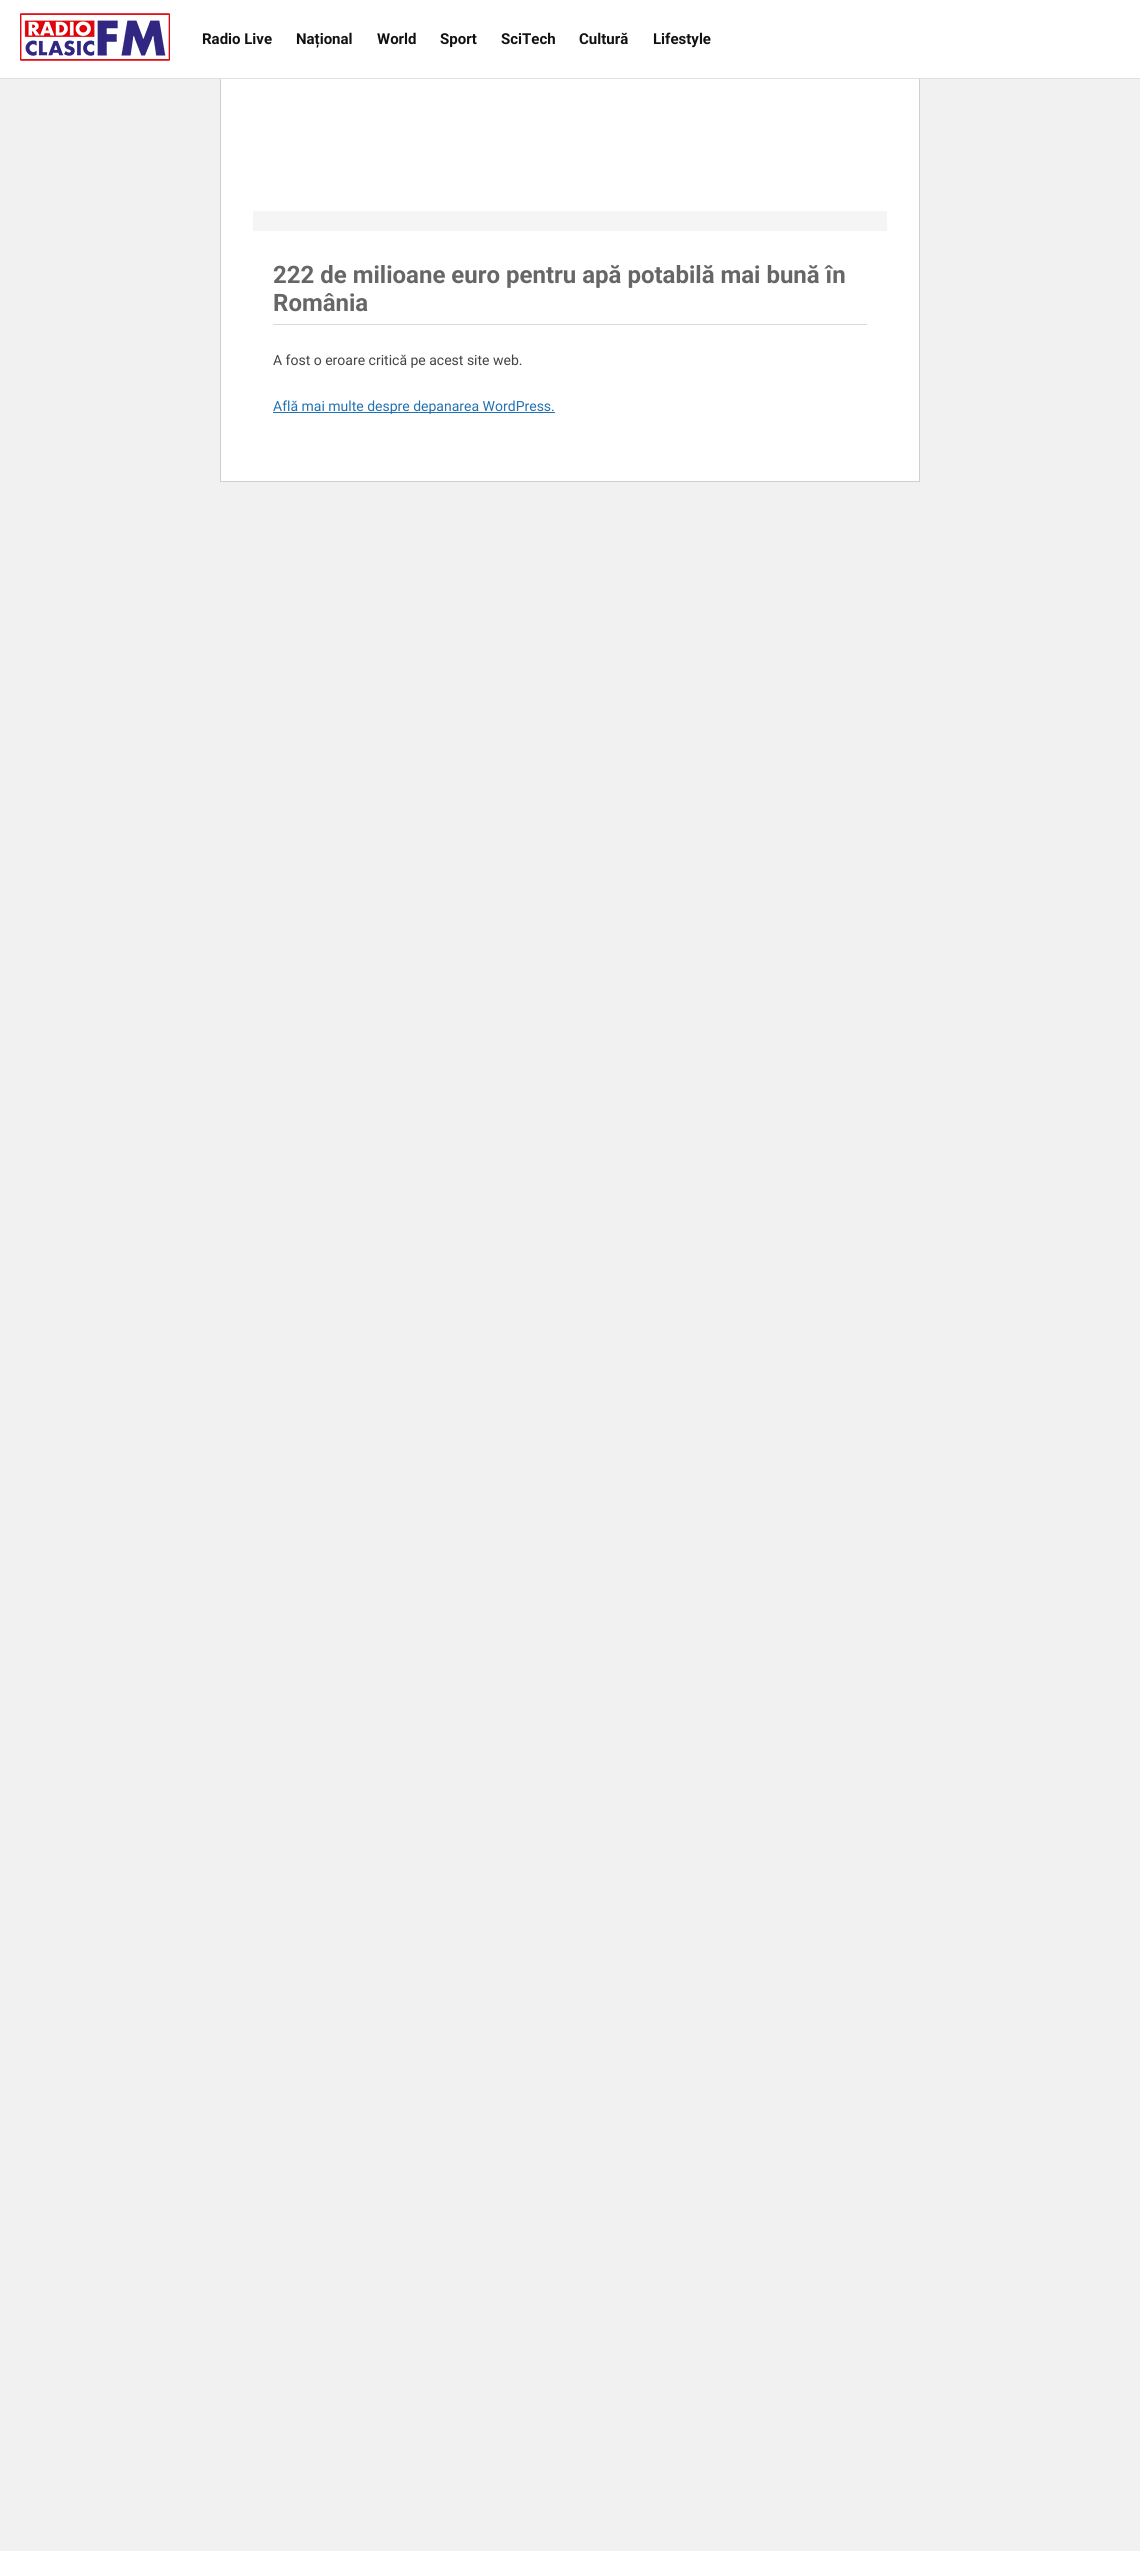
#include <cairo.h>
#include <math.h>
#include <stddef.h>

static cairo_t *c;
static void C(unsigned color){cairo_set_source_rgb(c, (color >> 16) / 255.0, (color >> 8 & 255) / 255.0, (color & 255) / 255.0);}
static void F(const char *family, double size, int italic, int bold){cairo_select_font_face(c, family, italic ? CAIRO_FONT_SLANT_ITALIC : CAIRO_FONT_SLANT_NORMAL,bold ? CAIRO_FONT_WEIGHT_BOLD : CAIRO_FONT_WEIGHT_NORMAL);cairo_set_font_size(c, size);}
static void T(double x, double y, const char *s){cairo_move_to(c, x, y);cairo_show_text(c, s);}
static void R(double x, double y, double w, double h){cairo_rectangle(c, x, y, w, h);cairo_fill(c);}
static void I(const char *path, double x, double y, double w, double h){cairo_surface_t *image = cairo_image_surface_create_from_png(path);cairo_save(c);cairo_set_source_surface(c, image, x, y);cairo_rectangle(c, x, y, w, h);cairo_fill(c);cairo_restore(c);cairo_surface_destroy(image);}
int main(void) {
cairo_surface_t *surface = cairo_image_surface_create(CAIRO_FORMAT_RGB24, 1140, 2551);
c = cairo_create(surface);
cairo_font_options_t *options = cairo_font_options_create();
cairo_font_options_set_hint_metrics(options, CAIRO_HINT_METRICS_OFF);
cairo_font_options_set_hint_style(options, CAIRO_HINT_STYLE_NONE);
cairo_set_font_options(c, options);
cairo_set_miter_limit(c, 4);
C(0xf1f1f1);
cairo_paint(c);
C(0xffffff);
R(221,79,698,402);
cairo_rectangle(c,220.5,50.5,699,431);
C(0xccd0d4);
cairo_set_line_width(c,1);
cairo_stroke(c);
C(0xffffff);
R(0,0,1140,78);
C(0xe0e0e0);
R(0,78,1140,1);
I("1.png",20,13,150,48);
F("Roboto",15,0,1);
C(0x111111);
T(202,44,"Radio Live");
T(296,44,"Național");
T(377,44,"World");
T(440,44,"Sport");
T(501,44,"SciTech");
T(579,44,"Cultură");
T(653,44,"Lifestyle");
C(0xf5f5f5);
R(253,211,634,20);
C(0xdadada);
R(273,324,594,1);
F("Roboto",24,0,1);
C(0x666666);
T(273,283,"222 de milioane euro pentru apă potabilă mai bună în");
T(273,311,"România");
F("Roboto",14,0,0);
C(0x444444);
T(273,365,"A fost o eroare critică pe acest site web.");
C(0x2271b1);
R(273,412,282,1);
T(273,411,"Află mai multe despre depanarea WordPress.");
cairo_surface_write_to_png(surface, "o.png");
cairo_font_options_destroy(options);
cairo_destroy(c);
cairo_surface_destroy(surface);
return 0;
}
